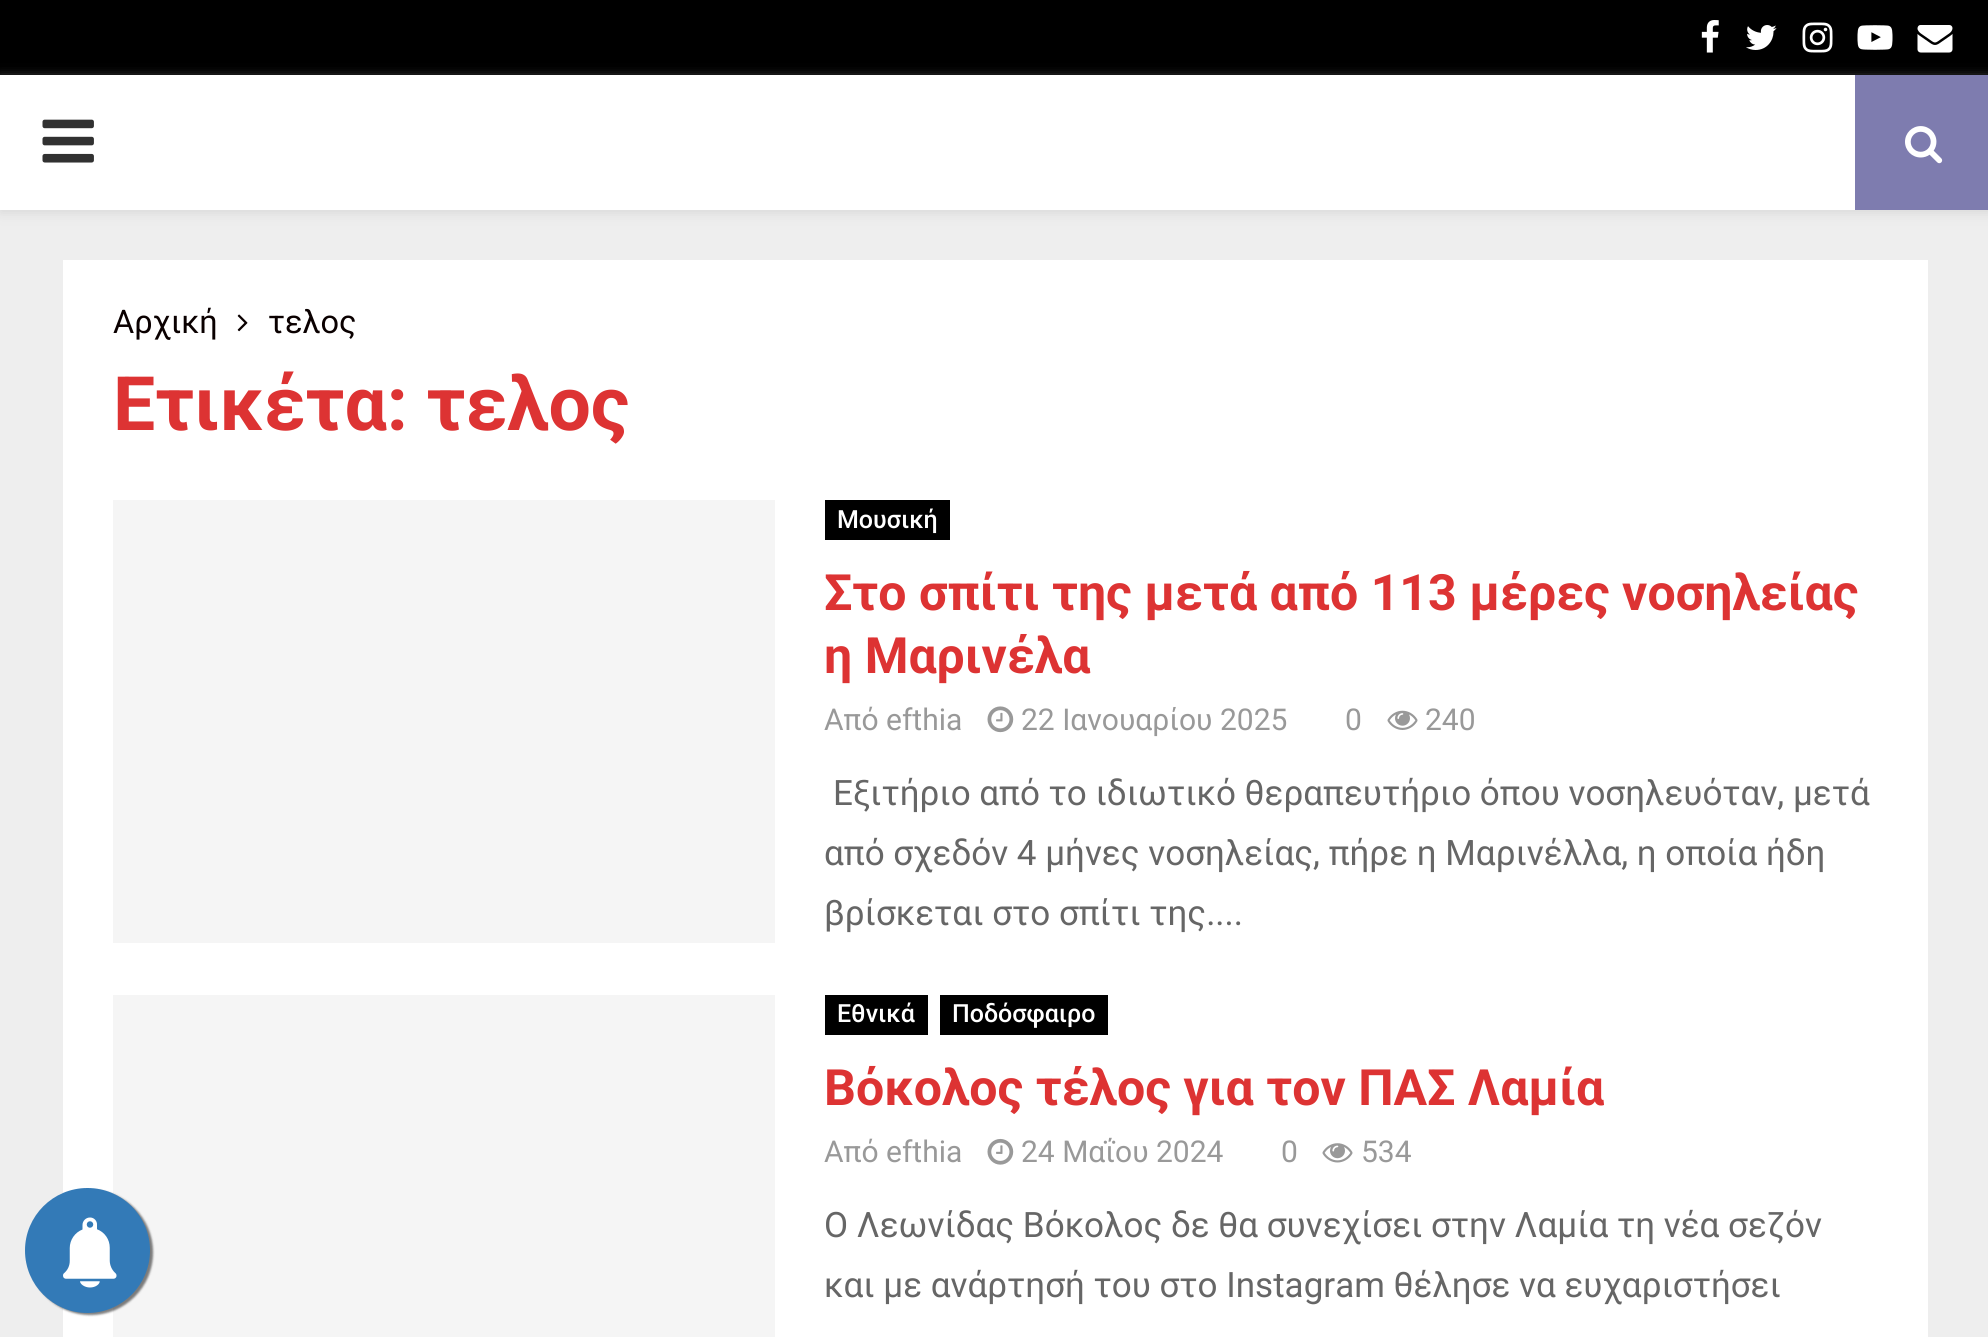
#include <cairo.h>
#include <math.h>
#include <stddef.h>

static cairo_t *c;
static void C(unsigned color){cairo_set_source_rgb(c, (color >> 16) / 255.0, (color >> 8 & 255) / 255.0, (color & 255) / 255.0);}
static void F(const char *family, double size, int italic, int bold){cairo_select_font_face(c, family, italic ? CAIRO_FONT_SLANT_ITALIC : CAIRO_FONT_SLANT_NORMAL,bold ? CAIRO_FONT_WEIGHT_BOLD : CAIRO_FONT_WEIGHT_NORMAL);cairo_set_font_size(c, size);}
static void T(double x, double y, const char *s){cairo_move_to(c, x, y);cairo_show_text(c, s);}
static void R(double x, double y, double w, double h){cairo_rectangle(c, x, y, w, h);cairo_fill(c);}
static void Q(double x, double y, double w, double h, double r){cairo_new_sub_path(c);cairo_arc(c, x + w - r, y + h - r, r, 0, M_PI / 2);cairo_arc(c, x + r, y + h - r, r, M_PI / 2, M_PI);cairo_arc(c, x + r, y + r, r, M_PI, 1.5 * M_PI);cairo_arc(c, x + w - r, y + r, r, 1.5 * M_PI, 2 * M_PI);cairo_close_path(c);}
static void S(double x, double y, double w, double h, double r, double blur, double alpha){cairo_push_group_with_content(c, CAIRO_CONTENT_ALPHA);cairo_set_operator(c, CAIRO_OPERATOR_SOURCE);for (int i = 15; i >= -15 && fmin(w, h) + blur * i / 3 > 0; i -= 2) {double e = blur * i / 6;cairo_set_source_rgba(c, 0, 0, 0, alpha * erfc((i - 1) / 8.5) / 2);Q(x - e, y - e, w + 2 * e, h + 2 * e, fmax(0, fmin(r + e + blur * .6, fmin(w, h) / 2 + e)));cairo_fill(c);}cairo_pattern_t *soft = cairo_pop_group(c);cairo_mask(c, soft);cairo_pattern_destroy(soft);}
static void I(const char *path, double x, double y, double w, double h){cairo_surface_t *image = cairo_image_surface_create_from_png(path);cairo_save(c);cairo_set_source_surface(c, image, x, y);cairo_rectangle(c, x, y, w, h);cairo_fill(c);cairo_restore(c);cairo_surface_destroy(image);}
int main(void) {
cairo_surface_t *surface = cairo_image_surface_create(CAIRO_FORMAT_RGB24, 1988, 1337);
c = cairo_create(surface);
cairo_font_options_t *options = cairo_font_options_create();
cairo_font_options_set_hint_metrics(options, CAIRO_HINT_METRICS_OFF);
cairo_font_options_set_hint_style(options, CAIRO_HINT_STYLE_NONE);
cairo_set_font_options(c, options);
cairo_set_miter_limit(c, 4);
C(0xeeeeee);
cairo_paint(c);
C(0xffffff);
R(63,260,1865,1077);
C(0xf5f5f5);
R(113,995,662,342);
C(0x000000);
S(28,1190,125,125,62.5,1,.5);
C(0x337ab7);
cairo_arc(c,87.5,1250.5,62.5,0,2 * M_PI);
cairo_fill(c);
I("1.png",63,1217,54,71);
C(0x000000);
R(0,0,1988,75);
I("2.png",1701,20,18,33);
I("3.png",1746,25,31,25);
I("4.png",1802,22,31,31);
I("5.png",1857,25,36,25);
I("6.png",1917,25,36,28);
C(0xbebebe);
S(0,78,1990,135,0,6,.46);
C(0xffffff);
R(0,75,1855,135);
I("7.png",42,119,52,44);
C(0x7e7caf);
R(1855,75,133,135);
I("8.png",1905,126,38,38);
F("Roboto",32.5,0,0);
C(0x0a0000);
T(113,333,"Αρχική");
I("9.png",237,314,11,18);
T(268,333,"τελος");
F("Roboto",75,0,1);
C(0xdd3333);
T(113,430,"Ετικέτα: τελος");
C(0xf5f5f5);
R(113,500,662,443);
C(0x000000);
R(825,500,125,40);
F("Roboto Medium",25,0,0);
C(0xffffff);
T(837,528,"Μουσική");
F("Roboto",50,0,1);
C(0xdd3333);
T(824,610,"Στο σπίτι της μετά από 113 μέρες νοσηλείας");
T(824,673,"η Μαρινέλα");
F("Roboto",30,0,0);
C(0x999999);
T(824,730,"Από efthia");
I("10.png",987,706,27,27);
T(1021,730,"22 Ιανουαρίου 2025");
T(1345,730,"0");
I("11.png",1387,710,31,20);
T(1425,730,"240");
F("Roboto",35,0,0);
C(0x666666);
T(833,805,"Εξιτήριο από το ιδιωτικό θεραπευτήριο όπου νοσηλευόταν, μετά");
T(824,865,"από σχεδόν 4 μήνες νοσηλείας, πήρε η Μαρινέλλα, η οποία ήδη");
T(824,925,"βρίσκεται στο σπίτι της....");
C(0x000000);
R(825,995,103,40);
F("Roboto Medium",25,0,0);
C(0xffffff);
T(837,1022,"Εθνικά");
C(0x000000);
R(940,995,168,40);
C(0xffffff);
T(952,1022,"Ποδόσφαιρο");
F("Roboto",50,0,1);
C(0xdd3333);
T(824,1105,"Βόκολος τέλος για τον ΠΑΣ Λαμία");
F("Roboto",30,0,0);
C(0x999999);
T(824,1162,"Από efthia");
I("12.png",987,1138,27,27);
T(1021,1162,"24 Μαΐου 2024");
T(1281,1162,"0");
I("13.png",1322,1143,31,20);
T(1361,1162,"534");
F("Roboto",35,0,0);
C(0x666666);
T(824,1237,"Ο Λεωνίδας Βόκολος δε θα συνεχίσει στην Λαμία τη νέα σεζόν");
T(824,1297,"και με ανάρτησή του στο Instagram θέλησε να ευχαριστήσει");
cairo_surface_write_to_png(surface, "o.png");
cairo_font_options_destroy(options);
cairo_destroy(c);
cairo_surface_destroy(surface);
return 0;
}
